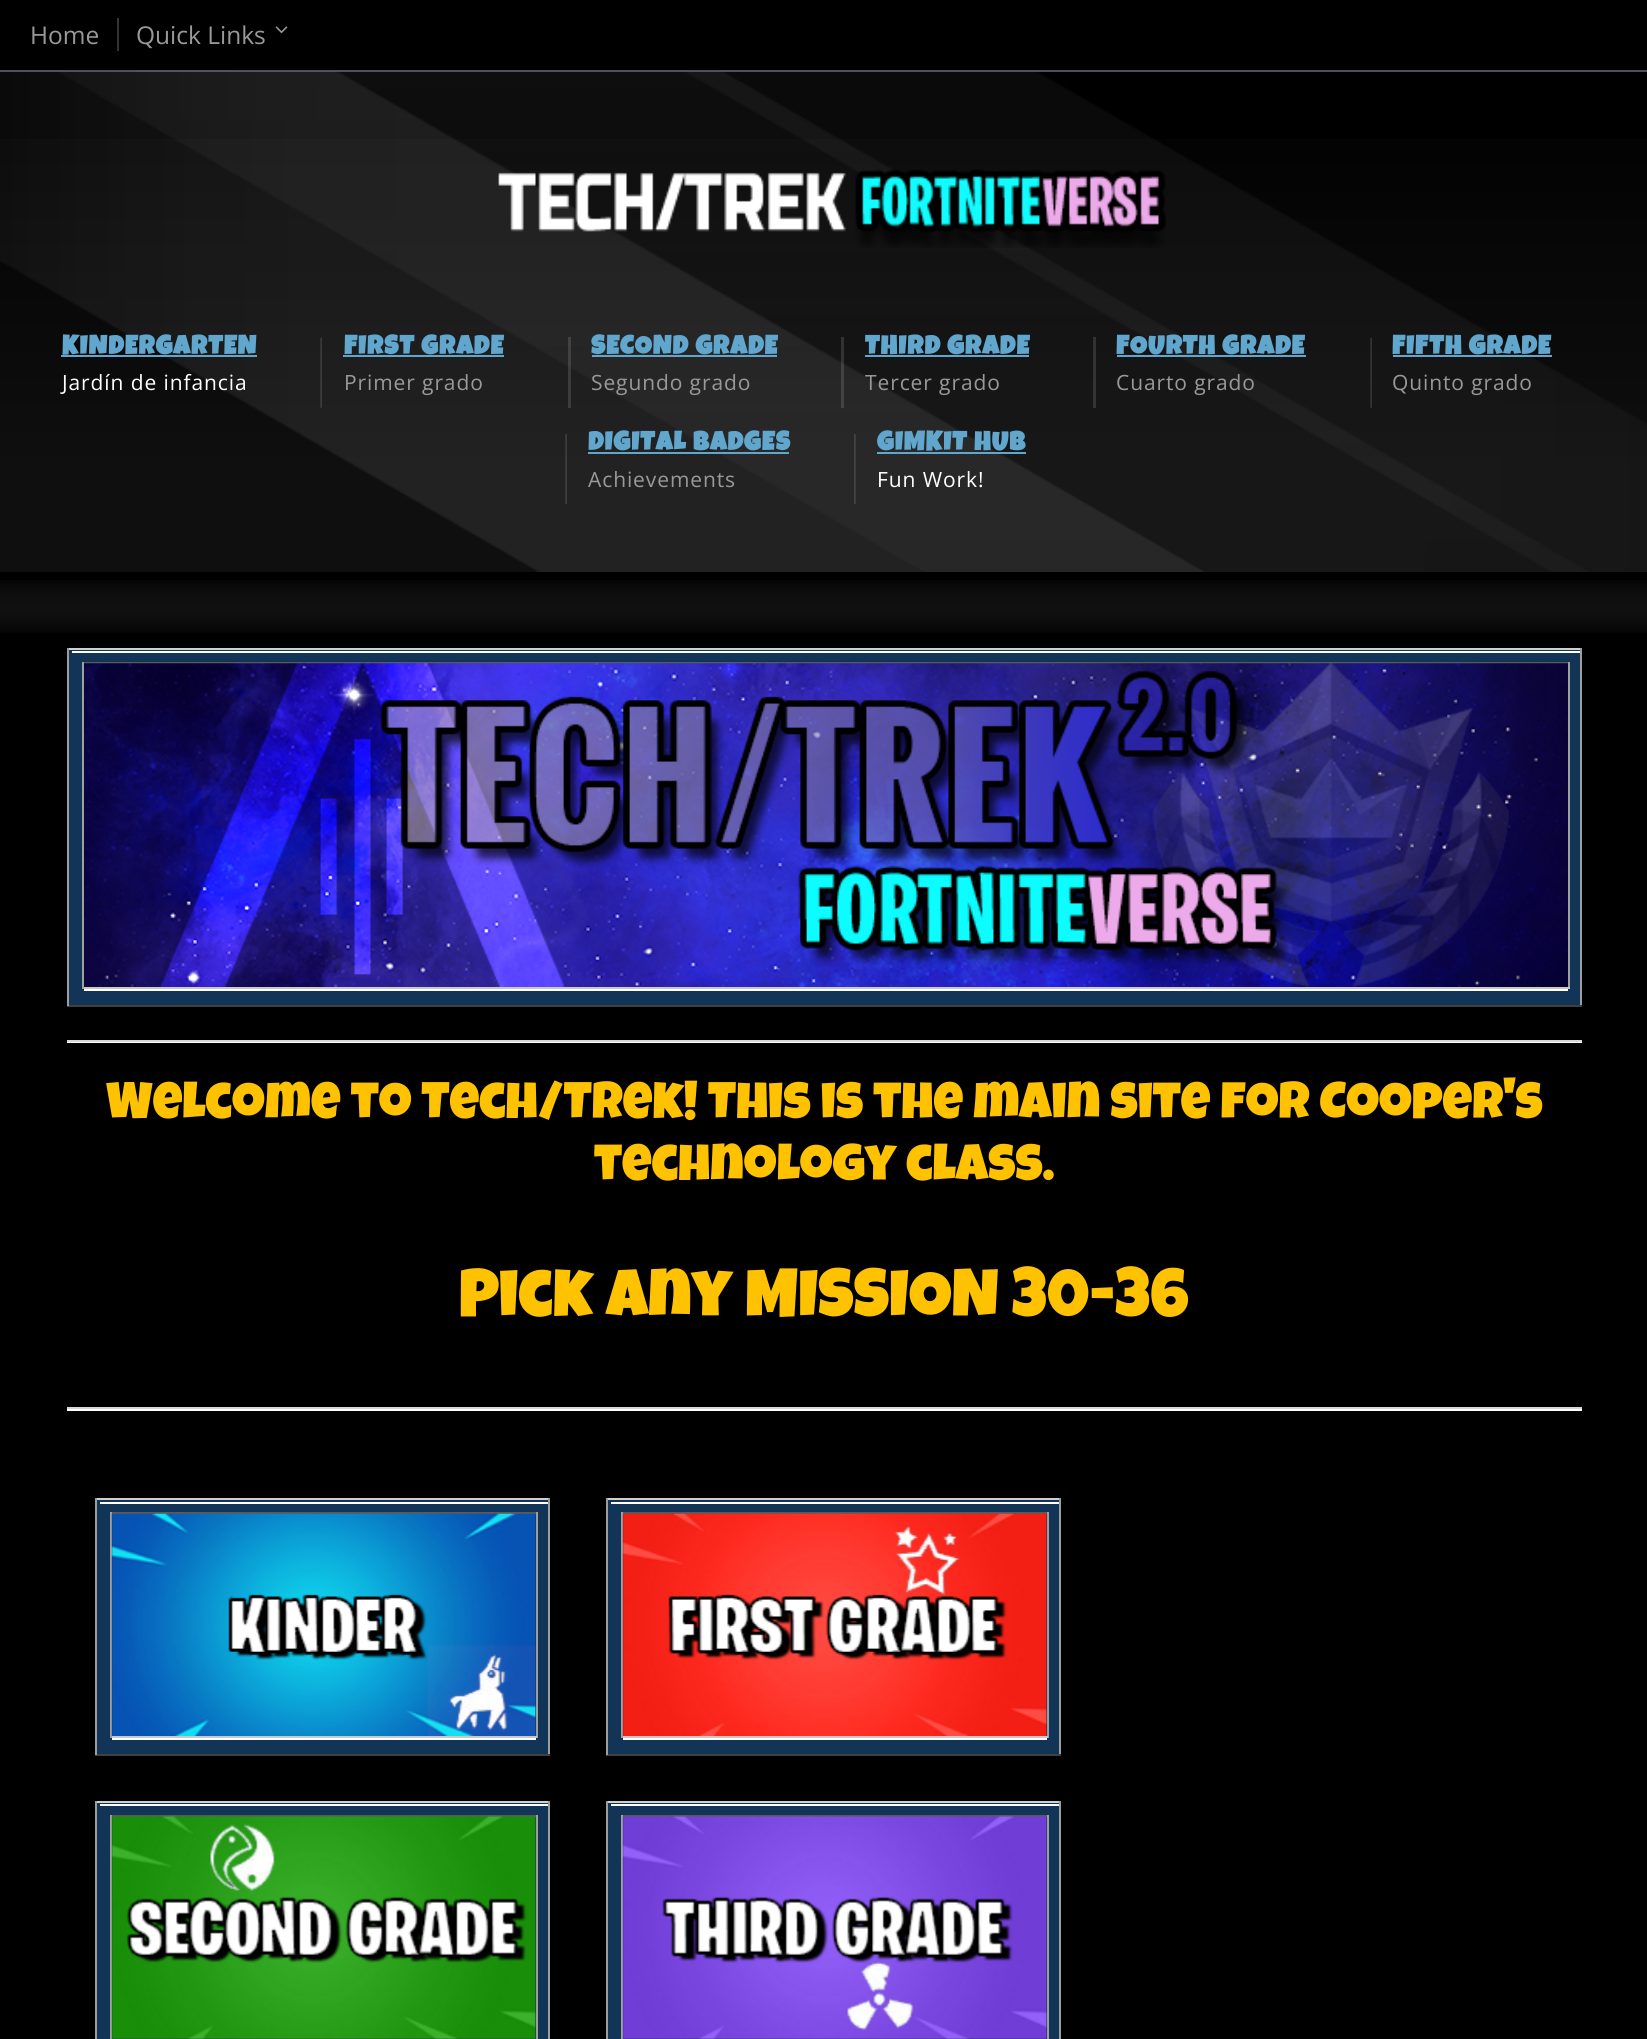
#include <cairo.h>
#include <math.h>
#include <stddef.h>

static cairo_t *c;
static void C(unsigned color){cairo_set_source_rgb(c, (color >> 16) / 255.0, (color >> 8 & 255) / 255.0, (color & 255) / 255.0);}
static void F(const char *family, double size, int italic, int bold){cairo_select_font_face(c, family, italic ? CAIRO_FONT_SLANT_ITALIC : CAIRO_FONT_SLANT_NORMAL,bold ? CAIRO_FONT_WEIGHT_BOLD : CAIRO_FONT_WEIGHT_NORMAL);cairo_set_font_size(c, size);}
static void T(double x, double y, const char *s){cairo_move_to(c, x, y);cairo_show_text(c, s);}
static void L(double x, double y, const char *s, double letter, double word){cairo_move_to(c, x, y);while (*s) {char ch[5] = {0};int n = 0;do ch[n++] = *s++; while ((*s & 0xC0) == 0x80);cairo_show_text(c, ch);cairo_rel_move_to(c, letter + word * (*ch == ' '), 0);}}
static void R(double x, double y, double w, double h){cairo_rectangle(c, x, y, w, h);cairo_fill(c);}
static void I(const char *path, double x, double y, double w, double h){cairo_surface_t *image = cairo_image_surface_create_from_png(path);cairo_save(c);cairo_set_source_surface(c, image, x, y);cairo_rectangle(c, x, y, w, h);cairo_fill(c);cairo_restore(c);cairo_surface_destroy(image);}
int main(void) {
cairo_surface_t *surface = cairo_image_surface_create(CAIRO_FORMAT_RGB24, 1647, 2039);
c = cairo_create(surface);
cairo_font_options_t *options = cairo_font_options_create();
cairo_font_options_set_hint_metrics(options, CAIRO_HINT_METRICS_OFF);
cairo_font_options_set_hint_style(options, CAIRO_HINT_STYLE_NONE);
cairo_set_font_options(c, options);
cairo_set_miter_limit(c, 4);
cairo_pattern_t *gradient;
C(0x000000);
cairo_paint(c);
F("Open Sans",24.5,0,0);
C(0x999999);
T(30,44,"Home");
C(0x333333);
R(117,18,2,33);
C(0x999999);
T(136,44,"Quick Links");
I("1.png",275,26,13,8);
gradient = cairo_pattern_create_linear(824,72,824,572);
cairo_pattern_add_color_stop_rgba(gradient,0,0,0,0,1);
cairo_pattern_add_color_stop_rgba(gradient,.8,0.059,0.059,0.059,1);
cairo_set_source(c,gradient);
cairo_pattern_destroy(gradient);
R(0,139,1647,433);
C(0x4f4f5b);
R(0,70,1647,2);
I("2.png",0,71,1647,501);
I("3.png",498,169,668,79);
F("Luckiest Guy",26.25,0,1);
C(0x60a6cd);
L(62,354,"KINDERGARTEN",1.25,0);
R(61,355,196,2);
F("Open Sans",21,0,0);
C(0xffffff);
L(62,390,"Jardín de infancia",.9,0);
I("4.png",320,337,2,71);
F("Luckiest Guy",26.25,0,1);
C(0x60a6cd);
L(344,354,"FIRST GRADE",1.25,0);
R(343,355,161,2);
F("Open Sans",21,0,0);
C(0x999999);
L(344,390,"Primer grado",.9,0);
cairo_set_source_rgba(c,1,1,1,0.13);
R(568,337,3,71);
F("Luckiest Guy",26.25,0,1);
C(0x60a6cd);
L(591,354,"SECOND GRADE",1.25,0);
R(592,355,185,2);
F("Open Sans",21,0,0);
C(0x999999);
L(591,390,"Segundo grado",.9,0);
cairo_set_source_rgba(c,1,1,1,0.13);
R(841,337,3,71);
F("Luckiest Guy",26.25,0,1);
C(0x60a6cd);
L(865,354,"THIRD GRADE",1.25,0);
R(865,355,164,2);
F("Open Sans",21,0,0);
C(0x999999);
L(865,390,"Tercer grado",.9,0);
cairo_set_source_rgba(c,1,1,1,0.13);
R(1093,337,3,71);
F("Luckiest Guy",26.25,0,1);
C(0x60a6cd);
L(1116,354,"FOURTH GRADE",1.25,0);
R(1117,355,189,2);
F("Open Sans",21,0,0);
C(0x999999);
L(1116,390,"Cuarto grado",.9,0);
I("5.png",1370,337,2,71);
F("Luckiest Guy",26.25,0,1);
C(0x60a6cd);
L(1392,354,"FIFTH GRADE",1.25,0);
R(1393,355,159,2);
F("Open Sans",21,0,0);
C(0x999999);
L(1392,390,"Quinto grado",.9,0);
I("6.png",565,434,2,70);
F("Luckiest Guy",26.25,0,1);
C(0x60a6cd);
L(588,450,"DIGITAL BADGES",1.25,0);
R(588,452,201,2);
F("Open Sans",21,0,0);
C(0x999999);
L(588,487,"Achievements",.9,0);
I("7.png",854,434,2,70);
F("Luckiest Guy",26.25,0,1);
C(0x60a6cd);
L(877,450,"GIMKIT HUB",1.25,0);
R(877,452,149,2);
F("Open Sans",21,0,0);
C(0xffffff);
L(877,487,"Fun Work!",.9,0);
I("8.png",0,580,1647,53);
C(0x123456);
R(69,650,1511,355);
C(0xcfcfce);
R(67,648,1515,2);
C(0x9d9d9b);
R(1580,648,2,358);
C(0x404040);
R(67,1005,1515,2);
C(0x9d9d9b);
R(67,648,2,358);
C(0x5a5a59);
R(82,662,1488,2);
C(0xa0a09e);
R(1568,662,2,327);
C(0xc9c9c7);
R(82,987,1488,2);
C(0xa0a09e);
R(82,662,2,327);
C(0xffffff);
R(72,651,1508,2);
I("9.png",84,663,1484,324);
R(84,989,1484,2);
C(0xfefefc);
R(67,1042,1515,1);
R(67,1409,1515,2);
C(0xd8d8d6);
R(67,1040,1515,2);
F("Luckiest Guy",51.45,0,0);
C(0xffc200);
T(106,1118,"Welcome to Tech/Trek! This is the main site for Cooper's");
T(594,1180,"technology class.");
F("Luckiest Guy",66.9,0,0);
T(459,1316,"Pick any MISSION 30-36");
C(0xd8d8d6);
R(67,1407,1515,2);
C(0x123456);
R(97,1500,451,254);
C(0xcfcfce);
R(95,1498,455,2);
C(0x9d9d9b);
R(548,1498,2,257);
C(0x404040);
R(95,1754,455,2);
C(0x9d9d9b);
R(95,1498,2,257);
C(0x5a5a59);
R(110,1512,427,2);
C(0xa0a09e);
R(536,1512,2,226);
C(0xc9c9c7);
R(110,1736,427,2);
C(0xa0a09e);
R(110,1512,2,226);
C(0xffffff);
R(100,1502,448,2);
I("10.png",111,1513,426,223);
R(112,1738,424,2);
C(0x123456);
R(608,1500,451,254);
C(0xcfcfce);
R(606,1498,455,2);
C(0x9d9d9b);
R(1059,1498,2,257);
C(0x404040);
R(606,1754,455,2);
C(0x9d9d9b);
R(606,1498,2,257);
C(0x5a5a59);
R(621,1512,427,2);
C(0xa0a09e);
R(1047,1512,2,226);
C(0xc9c9c7);
R(621,1736,427,2);
C(0xa0a09e);
R(621,1512,2,226);
C(0xffffff);
R(611,1502,448,2);
I("11.png",622,1513,426,223);
R(623,1738,424,2);
C(0x123456);
R(97,1803,451,236);
C(0xcfcfce);
R(95,1801,455,2);
C(0x9d9d9b);
R(548,1801,2,238);
R(95,1801,2,238);
C(0x5a5a59);
R(110,1815,427,2);
C(0xa0a09e);
R(536,1815,2,224);
R(110,1815,2,224);
C(0xffffff);
R(100,1804,448,2);
I("12.png",111,1815,426,224);
C(0x123456);
R(608,1803,451,236);
C(0xcfcfce);
R(606,1801,455,2);
C(0x9d9d9b);
R(1059,1801,2,238);
R(606,1801,2,238);
C(0x5a5a59);
R(621,1815,427,2);
C(0xa0a09e);
R(1047,1815,2,224);
R(621,1815,2,224);
C(0xffffff);
R(611,1804,448,2);
I("13.png",622,1815,426,224);
cairo_surface_write_to_png(surface, "o.png");
cairo_font_options_destroy(options);
cairo_destroy(c);
cairo_surface_destroy(surface);
return 0;
}
